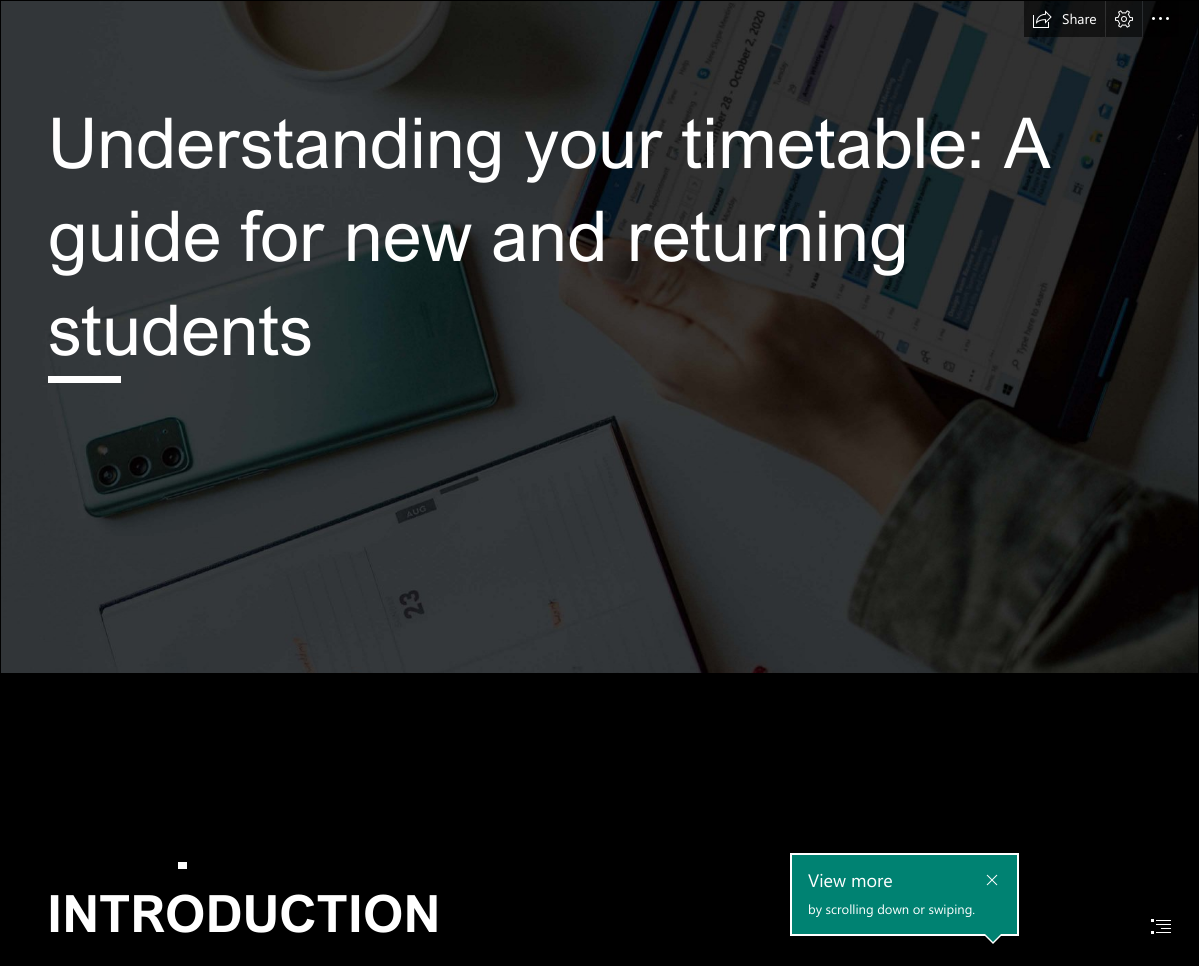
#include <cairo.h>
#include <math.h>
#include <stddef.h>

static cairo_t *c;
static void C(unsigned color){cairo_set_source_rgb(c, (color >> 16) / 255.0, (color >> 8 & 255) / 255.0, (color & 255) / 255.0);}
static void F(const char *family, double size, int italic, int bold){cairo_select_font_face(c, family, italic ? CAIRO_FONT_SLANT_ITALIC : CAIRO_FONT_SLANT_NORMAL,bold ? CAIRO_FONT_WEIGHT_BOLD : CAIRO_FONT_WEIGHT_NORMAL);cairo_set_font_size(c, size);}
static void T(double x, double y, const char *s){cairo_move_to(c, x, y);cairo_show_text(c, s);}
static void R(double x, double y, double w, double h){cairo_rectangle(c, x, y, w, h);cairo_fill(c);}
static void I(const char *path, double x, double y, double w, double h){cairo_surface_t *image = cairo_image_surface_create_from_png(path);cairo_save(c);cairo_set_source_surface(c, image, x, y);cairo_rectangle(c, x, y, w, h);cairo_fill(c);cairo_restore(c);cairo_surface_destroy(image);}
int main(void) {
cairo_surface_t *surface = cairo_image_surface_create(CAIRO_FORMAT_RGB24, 1199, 966);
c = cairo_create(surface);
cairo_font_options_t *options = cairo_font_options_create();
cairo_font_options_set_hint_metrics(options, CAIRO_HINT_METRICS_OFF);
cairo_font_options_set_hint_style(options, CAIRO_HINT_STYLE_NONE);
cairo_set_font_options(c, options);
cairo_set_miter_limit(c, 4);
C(0x000000);
cairo_paint(c);
I("4.png",1,1,1197,672);
cairo_set_source_rgba(c,0,0,0,0.6);
R(1024,1,81,36);
I("1.png",1033,10,19,18);
F("Segoe UI",14,0,0);
C(0xffffff);
T(1062,24,"Share");
cairo_set_source_rgba(c,0,0,0,0.6);
R(1106,1,36,36);
I("2.png",1115,10,18,18);
R(1143,1,36,36);
I("3.png",1152,17,17,3);
F("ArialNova",70.25,0,0);
C(0xffffff);
T(48,168,"Understanding your timetable: A");
T(48,261,"guide for new and returning");
T(48,355,"students");
R(48,376,73,7);
R(178,862,9,7);
F("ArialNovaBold",51.5,0,1);
T(47,932,"INTRODUCTION");
C(0x008272);
cairo_rectangle(c,791,854,227,81);
cairo_fill_preserve(c);
C(0xffffff);
cairo_stroke(c);
F("Segoe UI",18,0,0);
T(808,887,"View more");
F("Segoe UI",13,0,0);
T(808,914,"by scrolling down or swiping.");
I("5.png",986,874,12,12);
cairo_new_path(c);
cairo_move_to(c,983,934);
cairo_line_to(c,1003,934);
cairo_line_to(c,993,944);
cairo_close_path(c);
cairo_fill(c);
C(0x008272);
cairo_new_path(c);
cairo_move_to(c,985,934);
cairo_line_to(c,1001,934);
cairo_line_to(c,993,942);
cairo_close_path(c);
cairo_fill(c);
I("6.png",1151,919,20,15);
cairo_surface_write_to_png(surface, "o.png");
cairo_font_options_destroy(options);
cairo_destroy(c);
cairo_surface_destroy(surface);
return 0;
}
